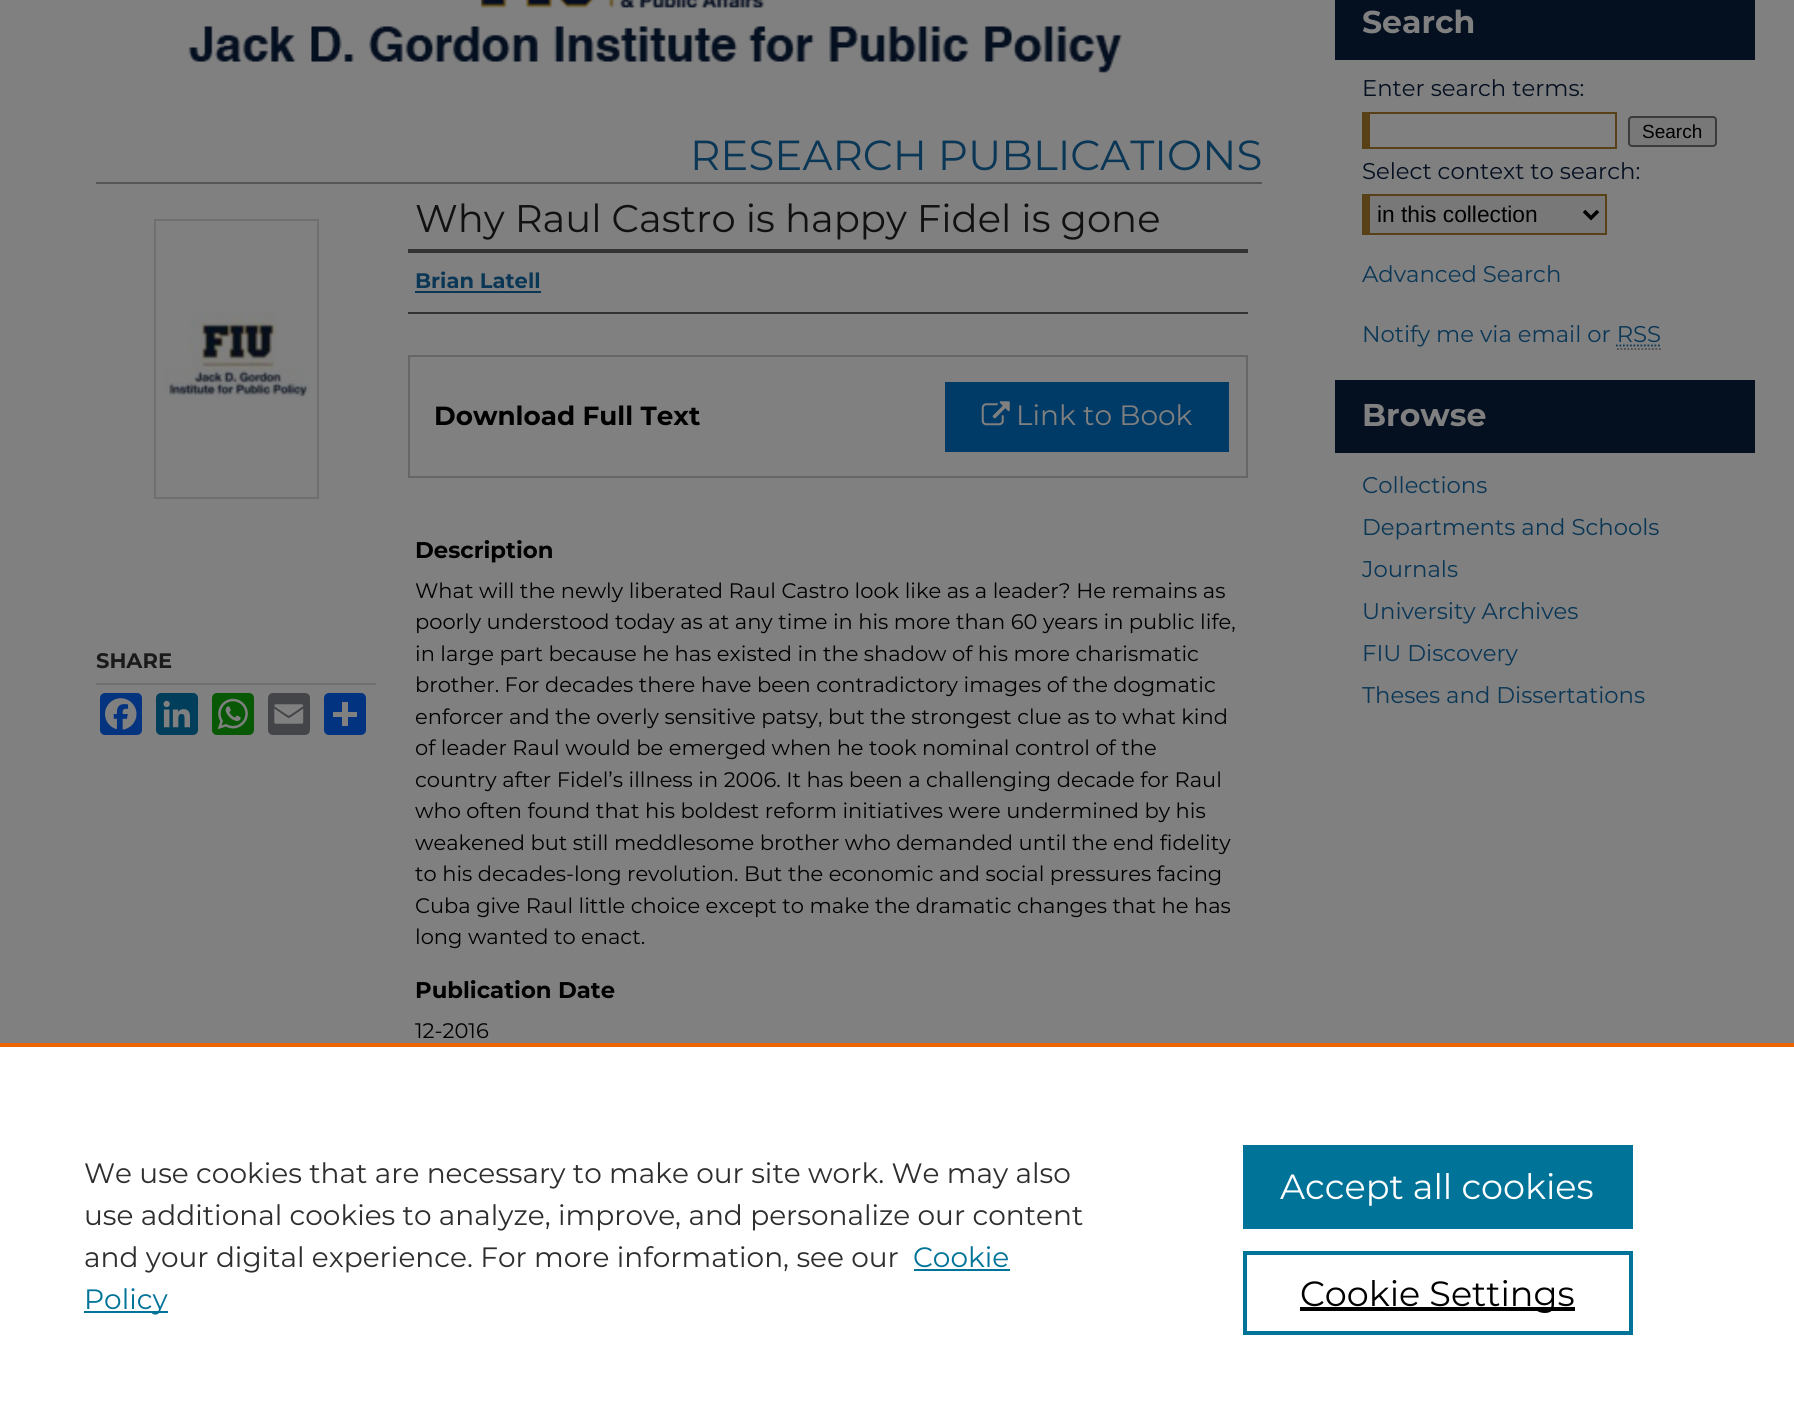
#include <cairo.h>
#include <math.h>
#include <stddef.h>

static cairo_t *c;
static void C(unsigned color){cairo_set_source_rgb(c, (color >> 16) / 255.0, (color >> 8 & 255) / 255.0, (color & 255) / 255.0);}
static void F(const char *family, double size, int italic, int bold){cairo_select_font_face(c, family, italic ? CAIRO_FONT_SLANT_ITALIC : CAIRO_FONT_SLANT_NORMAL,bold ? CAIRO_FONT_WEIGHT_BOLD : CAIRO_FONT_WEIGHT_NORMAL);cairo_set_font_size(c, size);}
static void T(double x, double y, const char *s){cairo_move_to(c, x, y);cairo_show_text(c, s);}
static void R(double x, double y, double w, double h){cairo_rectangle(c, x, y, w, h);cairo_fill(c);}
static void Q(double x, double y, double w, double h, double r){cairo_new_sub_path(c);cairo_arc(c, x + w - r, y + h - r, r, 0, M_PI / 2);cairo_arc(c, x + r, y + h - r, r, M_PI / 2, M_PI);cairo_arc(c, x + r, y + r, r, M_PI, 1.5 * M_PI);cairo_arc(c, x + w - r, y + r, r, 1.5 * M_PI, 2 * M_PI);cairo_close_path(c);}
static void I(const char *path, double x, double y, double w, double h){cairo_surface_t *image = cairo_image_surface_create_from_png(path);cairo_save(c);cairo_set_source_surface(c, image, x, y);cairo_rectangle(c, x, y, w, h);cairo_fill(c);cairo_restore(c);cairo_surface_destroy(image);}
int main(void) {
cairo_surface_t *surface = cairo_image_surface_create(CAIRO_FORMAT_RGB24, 1794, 1428);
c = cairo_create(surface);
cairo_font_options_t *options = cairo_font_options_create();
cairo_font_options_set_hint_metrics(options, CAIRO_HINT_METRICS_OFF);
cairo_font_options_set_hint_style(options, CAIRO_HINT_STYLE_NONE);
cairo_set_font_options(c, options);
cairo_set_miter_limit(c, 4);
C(0x808080);
cairo_paint(c);
I("1.png",188,0,935,73);
F("Montserrat",42,0,0);
C(0x0b3756);
T(690,170,"RESEARCH PUBLICATIONS");
cairo_rectangle(c,155,220,163,278);
C(0x6f6f6f);
cairo_stroke(c);
I("2.png",163,312,147,85);
R(96,683,280,2);
F("Montserrat",21,0,1);
C(0x1a1a1a);
T(96,668,"SHARE");
C(0x043380);
Q(100,693,42,42,5);
cairo_fill(c);
I("3.png",105,698,32,32);
C(0x003e5b);
Q(156,693,42,42,5);
cairo_fill(c);
I("4.png",163,700,27,28);
C(0x095805);
Q(212,693,42,42,5);
cairo_fill(c);
I("5.png",217,698,31,32);
C(0x444548);
Q(268,693,42,42,5);
cairo_fill(c);
I("6.png",274,704,30,20);
C(0x013380);
Q(324,693,42,42,5);
cairo_fill(c);
C(0x808080);
R(342,702,6,24);
R(333,712,24,5);
C(0x555555);
R(96,182,1166,2);
F("Montserrat",38.5,0,0);
C(0x111111);
T(415,232,"Why Raul Castro is happy Fidel is gone");
C(0x333333);
R(408,249,840,4);
R(408,312,840,2);
F("Montserrat",21,0,1);
C(0x0b3756);
T(415,288,"Brian Latell");
R(415,291,126,2);
cairo_rectangle(c,409,356,838,121);
C(0x666666);
cairo_stroke(c);
F("Montserrat",26.25,0,1);
C(0x000000);
T(434,425,"Download Full Text");
C(0x003a66);
R(945,382,284,70);
I("7.png",981,401,29,25);
F("Montserrat",28,0,0);
C(0x808080);
T(1016,425,"Link to Book");
F("Montserrat",22.75,0,1);
C(0x000000);
T(415,558,"Description");
F("Montserrat",21,0,0);
T(415,598,"What will the newly liberated Raul Castro look like as a leader? He remains as");
T(415,629,"poorly understood today as at any time in his more than 60 years in public life,");
T(415,661,"in large part because he has existed in the shadow of his more charismatic");
T(415,692,"brother. For decades there have been contradictory images of the dogmatic");
T(415,724,"enforcer and the overly sensitive patsy, but the strongest clue as to what kind");
T(415,755,"of leader Raul would be emerged when he took nominal control of the");
T(415,787,"country after Fidel’s illness in 2006. It has been a challenging decade for Raul");
T(415,818,"who often found that his boldest reform initiatives were undermined by his");
T(415,850,"weakened but still meddlesome brother who demanded until the end fidelity");
T(415,881,"to his decades-long revolution. But the economic and social pressures facing");
T(415,913,"Cuba give Raul little choice except to make the dramatic changes that he has");
T(415,944,"long wanted to enact.");
F("Montserrat",22.75,0,1);
T(415,998,"Publication Date");
F("Montserrat",21,0,0);
T(415,1038,"12-2016");
C(0x040f20);
R(1335,0,420,60);
F("Montserrat",31.5,0,1);
C(0x808080);
T(1362,33,"Search");
F("Montserrat",22.75,0,0);
C(0x040f20);
T(1362,96,"Enter search terms:");
C(0x584116);
R(1362,112,255,2);
R(1615,112,2,37);
R(1362,147,255,2);
R(1362,112,8,37);
C(0x787878);
Q(1629,117,87,29,3);
cairo_fill_preserve(c);
C(0x3b3b3b);
cairo_stroke(c);
F("Liberation Sans",19,0,0);
C(0x000000);
T(1642,138,"Search");
F("Montserrat",22.75,0,0);
C(0x040f20);
T(1362,179,"Select context to search:");
C(0x787878);
R(1370,196,235,37);
C(0x584116);
R(1362,194,245,2);
R(1605,194,2,41);
R(1362,233,245,2);
R(1362,194,8,41);
cairo_new_path(c);
cairo_move_to(c,1584,211);
cairo_line_to(c,1591,218);
cairo_line_to(c,1598,211);
C(0x000000);
cairo_set_line_width(c,3.5);
cairo_stroke(c);
F("Liberation Sans",22.75,0,0);
T(1377,222,"in this collection");
F("Montserrat",22.75,0,0);
C(0x0b3756);
T(1362,282,"Advanced Search");
T(1362,342,"Notify me via email or RSS");
cairo_new_path(c);
cairo_move_to(c,1616,345.5);
cairo_line_to(c,1660.5,345.5);
cairo_set_line_width(c,1.8);
cairo_set_dash(c,(double[]){1.75,1.75},2,0);
cairo_stroke(c);
cairo_new_path(c);
cairo_move_to(c,1617,349);
cairo_line_to(c,1661,349);
C(0x4d4d4d);
cairo_stroke(c);
C(0x040f20);
R(1335,380,420,73);
F("Montserrat",31.5,0,1);
C(0x808080);
T(1362,426,"Browse");
F("Montserrat",22.75,0,0);
C(0x0b3756);
T(1362,493,"Collections");
T(1362,535,"Departments and Schools");
T(1362,577,"Journals");
T(1362,619,"University Archives");
T(1362,661,"FIU Discovery");
T(1362,703,"Theses and Dissertations");
C(0xffffff);
R(0,1047,1794,381);
C(0xeb6500);
R(0,1043,1794,4);
F("Montserrat",28,0,0);
C(0x2e2e2e);
T(84,1183,"We use cookies that are necessary to make our site work. We may also");
T(84,1225,"use additional cookies to analyze, improve, and personalize our content");
T(84,1267,"and your digital experience. For more information, see our");
C(0x007398);
T(913,1267,"Cookie");
R(914,1269,96,2);
R(84,1311,84,2);
T(84,1309,"Policy");
R(1243,1145,390,84);
F("Montserrat",35,0,0);
C(0xffffff);
T(1280,1199,"Accept all cookies");
cairo_rectangle(c,1245,1253,386,80);
C(0x007398);
cairo_set_line_width(c,4);
cairo_set_dash(c,NULL,0,0);
cairo_stroke(c);
C(0x000000);
R(1300,1307,275,4);
T(1300,1306,"Cookie Settings");
cairo_surface_write_to_png(surface, "o.png");
cairo_font_options_destroy(options);
cairo_destroy(c);
cairo_surface_destroy(surface);
return 0;
}
